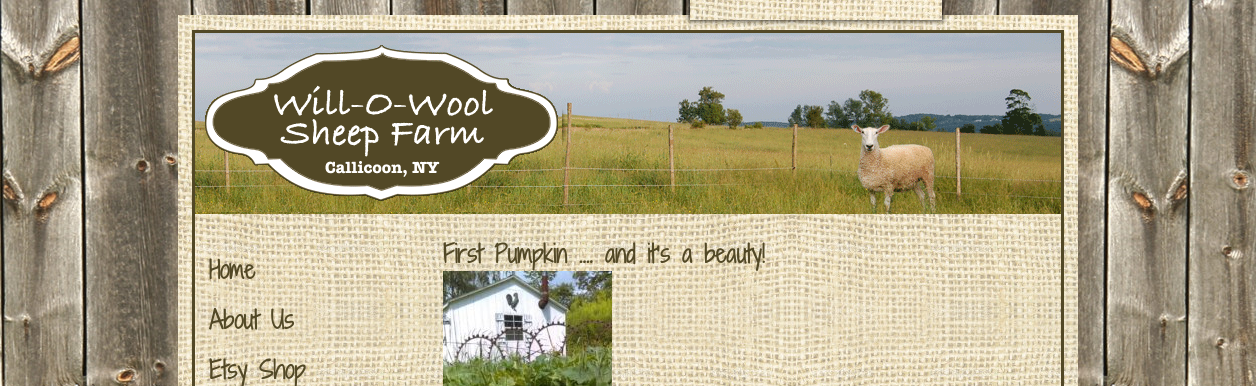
#include <cairo.h>
#include <math.h>
#include <stddef.h>

static cairo_t *c;
static void C(unsigned color){cairo_set_source_rgb(c, (color >> 16) / 255.0, (color >> 8 & 255) / 255.0, (color & 255) / 255.0);}
static void F(const char *family, double size, int italic, int bold){cairo_select_font_face(c, family, italic ? CAIRO_FONT_SLANT_ITALIC : CAIRO_FONT_SLANT_NORMAL,bold ? CAIRO_FONT_WEIGHT_BOLD : CAIRO_FONT_WEIGHT_NORMAL);cairo_set_font_size(c, size);}
static void T(double x, double y, const char *s){cairo_move_to(c, x, y);cairo_show_text(c, s);}
static void Q(double x, double y, double w, double h, double r){cairo_new_sub_path(c);cairo_arc(c, x + w - r, y + h - r, r, 0, M_PI / 2);cairo_arc(c, x + r, y + h - r, r, M_PI / 2, M_PI);cairo_arc(c, x + r, y + r, r, M_PI, 1.5 * M_PI);cairo_arc(c, x + w - r, y + r, r, 1.5 * M_PI, 2 * M_PI);cairo_close_path(c);}
static void S(double x, double y, double w, double h, double r, double blur, double alpha){cairo_push_group_with_content(c, CAIRO_CONTENT_ALPHA);cairo_set_operator(c, CAIRO_OPERATOR_SOURCE);for (int i = 15; i >= -15 && fmin(w, h) + blur * i / 3 > 0; i -= 2) {double e = blur * i / 6;cairo_set_source_rgba(c, 0, 0, 0, alpha * erfc((i - 1) / 8.5) / 2);Q(x - e, y - e, w + 2 * e, h + 2 * e, fmax(0, fmin(r + e + blur * .6, fmin(w, h) / 2 + e)));cairo_fill(c);}cairo_pattern_t *soft = cairo_pop_group(c);cairo_mask(c, soft);cairo_pattern_destroy(soft);}
static void I(const char *path, double x, double y, double w, double h){cairo_surface_t *image = cairo_image_surface_create_from_png(path);cairo_save(c);cairo_set_source_surface(c, image, x, y);cairo_rectangle(c, x, y, w, h);cairo_fill(c);cairo_restore(c);cairo_surface_destroy(image);}
int main(void) {
cairo_surface_t *surface = cairo_image_surface_create(CAIRO_FORMAT_RGB24, 1256, 386);
c = cairo_create(surface);
cairo_font_options_t *options = cairo_font_options_create();
cairo_font_options_set_hint_metrics(options, CAIRO_HINT_METRICS_OFF);
cairo_font_options_set_hint_style(options, CAIRO_HINT_STYLE_NONE);
cairo_set_font_options(c, options);
cairo_set_miter_limit(c, 4);
C(0xffffff);
cairo_paint(c);
I("1.png",0,0,1256,386);
I("3.png",178,15,900,371);
C(0x000000);
S(690,-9,252,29,0,3,1);
I("2.png",690,0,252,20);
I("4.png",195,33,866,181);
cairo_rectangle(c,193.5,31.5,869,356);
C(0x524826);
cairo_set_line_width(c,3);
cairo_stroke(c);
I("5.png",205,45,353,156);
F("Shadows Into Light Two",24,0,1);
T(209,279,"Home");
T(209,329,"About Us");
T(209,379,"Etsy Shop");
T(443,263,"First Pumpkin …. and it’s a beauty!");
I("6.png",443,271,169,115);
cairo_surface_write_to_png(surface, "o.png");
cairo_font_options_destroy(options);
cairo_destroy(c);
cairo_surface_destroy(surface);
return 0;
}
